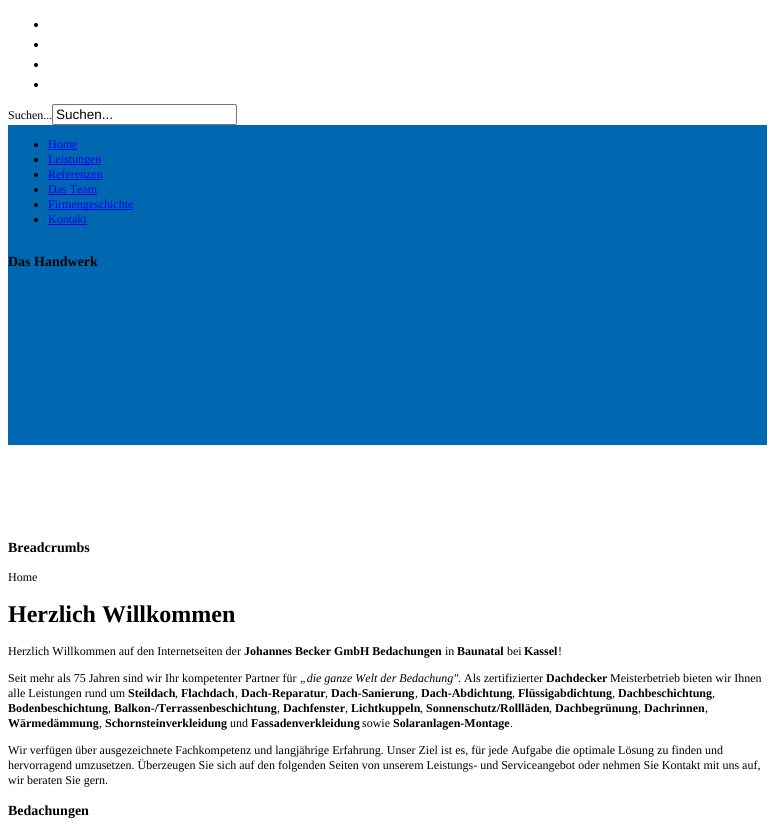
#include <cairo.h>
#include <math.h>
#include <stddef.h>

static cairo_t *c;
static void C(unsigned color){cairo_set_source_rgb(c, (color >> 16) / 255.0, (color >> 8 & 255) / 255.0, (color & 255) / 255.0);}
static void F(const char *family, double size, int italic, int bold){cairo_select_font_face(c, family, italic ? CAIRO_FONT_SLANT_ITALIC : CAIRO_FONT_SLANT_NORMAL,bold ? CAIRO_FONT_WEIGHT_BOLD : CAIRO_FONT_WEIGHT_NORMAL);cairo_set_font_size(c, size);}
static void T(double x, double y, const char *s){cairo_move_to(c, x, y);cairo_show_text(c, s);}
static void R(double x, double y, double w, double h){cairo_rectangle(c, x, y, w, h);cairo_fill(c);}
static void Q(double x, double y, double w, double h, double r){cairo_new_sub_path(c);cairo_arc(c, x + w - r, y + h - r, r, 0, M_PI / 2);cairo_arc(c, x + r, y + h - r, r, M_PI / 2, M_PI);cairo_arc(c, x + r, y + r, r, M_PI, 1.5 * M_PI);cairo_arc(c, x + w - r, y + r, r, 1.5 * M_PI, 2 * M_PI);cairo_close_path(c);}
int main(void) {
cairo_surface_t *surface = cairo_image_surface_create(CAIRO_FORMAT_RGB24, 775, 833);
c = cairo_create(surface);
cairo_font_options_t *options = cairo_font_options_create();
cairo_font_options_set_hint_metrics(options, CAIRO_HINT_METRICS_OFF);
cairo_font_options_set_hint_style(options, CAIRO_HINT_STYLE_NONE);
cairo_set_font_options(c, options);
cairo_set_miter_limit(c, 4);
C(0xffffff);
cairo_paint(c);
C(0x000000);
cairo_arc(c,36,25,2,0,2 * M_PI);
cairo_fill(c);
cairo_arc(c,36,45,2,0,2 * M_PI);
cairo_fill(c);
cairo_arc(c,36,65,2,0,2 * M_PI);
cairo_fill(c);
cairo_arc(c,36,85,2,0,2 * M_PI);
cairo_fill(c);
F("Liberation Serif",12,0,0);
T(8,119,"Suchen...");
Q(52.5,104.5,184,20,1.5);
C(0x767676);
cairo_set_line_width(c,1);
cairo_stroke(c);
F("Liberation Sans",13.5,0,0);
C(0x000000);
T(56,119,"Suchen...");
C(0x0068b0);
R(8,125,759,320);
C(0x000000);
cairo_new_path(c);
cairo_arc(c,36,145,2,0,2 * M_PI);
cairo_fill(c);
F("Liberation Serif",12,0,0);
C(0x0000ee);
T(48,148,"Home");
R(48,149,29,1);
C(0x000000);
cairo_new_path(c);
cairo_arc(c,36,160,2,0,2 * M_PI);
cairo_fill(c);
C(0x0000ee);
R(48,164,53,1);
T(48,163,"Leistungen");
C(0x000000);
cairo_new_path(c);
cairo_arc(c,36,175,2,0,2 * M_PI);
cairo_fill(c);
C(0x0000ee);
T(48,178,"Referenzen");
R(48,179,55,1);
C(0x000000);
cairo_new_path(c);
cairo_arc(c,36,190,2,0,2 * M_PI);
cairo_fill(c);
C(0x0000ee);
T(48,193,"Das Team");
R(48,194,49,1);
C(0x000000);
cairo_new_path(c);
cairo_arc(c,36,205,2,0,2 * M_PI);
cairo_fill(c);
C(0x0000ee);
R(48,209,85,1);
T(48,208,"Firmengeschichte");
C(0x000000);
cairo_new_path(c);
cairo_arc(c,36,220,2,0,2 * M_PI);
cairo_fill(c);
C(0x0000ee);
T(48,223,"Kontakt");
R(48,224,39,1);
F("Liberation Serif",14,0,1);
C(0x000000);
T(8,266,"Das Handwerk");
T(8,552,"Breadcrumbs");
F("Liberation Serif",12,0,0);
T(8,581,"Home");
F("Liberation Serif",24,0,1);
T(8,622,"Herzlich Willkommen");
F("Liberation Serif",12,0,0);
T(8,655,"Herzlich Willkommen auf den Internetseiten der");
F("Liberation Serif",12,0,1);
T(244,655,"Johannes Becker GmbH Bedachungen");
F("Liberation Serif",12,0,0);
T(445,655,"in");
F("Liberation Serif",12,0,1);
T(457,655,"Baunatal");
F("Liberation Serif",12,0,0);
T(507,655,"bei");
F("Liberation Serif",12,0,1);
T(524,655,"Kassel");
F("Liberation Serif",12,0,0);
T(558,655,"!");
T(8,682,"Seit mehr als 75 Jahren sind wir Ihr kompetenter Partner für");
F("Liberation Serif",12,1,0);
T(300,682,"„die ganze Welt der Bedachung\"");
F("Liberation Serif",12,0,0);
T(458,682,". Als zertifizierter");
F("Liberation Serif",12,0,1);
T(546,682,"Dachdecker");
F("Liberation Serif",12,0,0);
T(610,682,"Meisterbetrieb bieten wir Ihnen");
T(8,697,"alle Leistungen rund um");
F("Liberation Serif",12,0,1);
T(128,697,"Steildach");
F("Liberation Serif",12,0,0);
T(175,697,",");
F("Liberation Serif",12,0,1);
T(181,697,"Flachdach");
F("Liberation Serif",12,0,0);
T(235,697,",");
F("Liberation Serif",12,0,1);
T(241,697,"Dach-Reparatur");
F("Liberation Serif",12,0,0);
T(325,697,",");
F("Liberation Serif",12,0,1);
T(331,697,"Dach-Sanierung");
F("Liberation Serif",12,0,0);
T(415,697,",");
F("Liberation Serif",12,0,1);
T(421,697,"Dach-Abdichtung");
F("Liberation Serif",12,0,0);
T(512,697,",");
F("Liberation Serif",12,0,1);
T(518,697,"Flüssigabdichtung");
F("Liberation Serif",12,0,0);
T(612,697,",");
F("Liberation Serif",12,0,1);
T(618,697,"Dachbeschichtung");
F("Liberation Serif",12,0,0);
T(712,697,",");
F("Liberation Serif",12,0,1);
T(8,712,"Bodenbeschichtung");
F("Liberation Serif",12,0,0);
T(108,712,",");
F("Liberation Serif",12,0,1);
T(114,712,"Balkon-/Terrassenbeschichtung");
F("Liberation Serif",12,0,0);
T(277,712,",");
F("Liberation Serif",12,0,1);
T(283,712,"Dachfenster");
F("Liberation Serif",12,0,0);
T(345,712,",");
F("Liberation Serif",12,0,1);
T(351,712,"Lichtkuppeln");
F("Liberation Serif",12,0,0);
T(420,712,",");
F("Liberation Serif",12,0,1);
T(426,712,"Sonnenschutz/Rollläden");
F("Liberation Serif",12,0,0);
T(549,712,",");
F("Liberation Serif",12,0,1);
T(555,712,"Dachbegrünung");
F("Liberation Serif",12,0,0);
T(638,712,",");
F("Liberation Serif",12,0,1);
T(644,712,"Dachrinnen");
F("Liberation Serif",12,0,0);
T(705,712,",");
F("Liberation Serif",12,0,1);
T(8,727,"Wärmedämmung");
F("Liberation Serif",12,0,0);
T(99,727,",");
F("Liberation Serif",12,0,1);
T(105,727,"Schornsteinverkleidung");
F("Liberation Serif",12,0,0);
T(230,727,"und");
F("Liberation Serif",12,0,1);
T(251,727,"Fassadenverkleidung");
F("Liberation Serif",12,0,0);
T(362,727,"sowie");
F("Liberation Serif",12,0,1);
T(393,727,"Solaranlagen-Montage");
F("Liberation Serif",12,0,0);
T(510,727,".");
T(8,754,"Wir verfügen über ausgezeichnete Fachkompetenz und langjährige Erfahrung. Unser Ziel ist es, für jede Aufgabe die optimale Lösung zu finden und");
T(8,769,"hervorragend umzusetzen. Überzeugen Sie sich auf den folgenden Seiten von unserem Leistungs- und Serviceangebot oder nehmen Sie Kontakt mit uns auf,");
T(8,784,"wir beraten Sie gern.");
F("Liberation Serif",14,0,1);
T(8,815,"Bedachungen");
cairo_surface_write_to_png(surface, "o.png");
cairo_font_options_destroy(options);
cairo_destroy(c);
cairo_surface_destroy(surface);
return 0;
}
